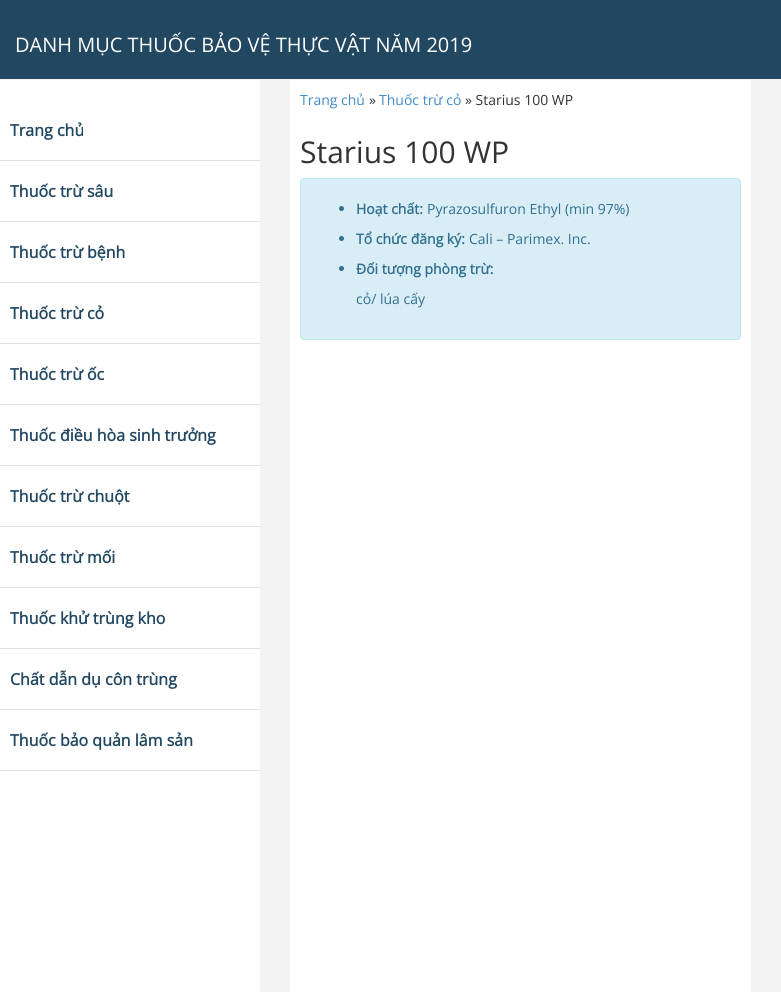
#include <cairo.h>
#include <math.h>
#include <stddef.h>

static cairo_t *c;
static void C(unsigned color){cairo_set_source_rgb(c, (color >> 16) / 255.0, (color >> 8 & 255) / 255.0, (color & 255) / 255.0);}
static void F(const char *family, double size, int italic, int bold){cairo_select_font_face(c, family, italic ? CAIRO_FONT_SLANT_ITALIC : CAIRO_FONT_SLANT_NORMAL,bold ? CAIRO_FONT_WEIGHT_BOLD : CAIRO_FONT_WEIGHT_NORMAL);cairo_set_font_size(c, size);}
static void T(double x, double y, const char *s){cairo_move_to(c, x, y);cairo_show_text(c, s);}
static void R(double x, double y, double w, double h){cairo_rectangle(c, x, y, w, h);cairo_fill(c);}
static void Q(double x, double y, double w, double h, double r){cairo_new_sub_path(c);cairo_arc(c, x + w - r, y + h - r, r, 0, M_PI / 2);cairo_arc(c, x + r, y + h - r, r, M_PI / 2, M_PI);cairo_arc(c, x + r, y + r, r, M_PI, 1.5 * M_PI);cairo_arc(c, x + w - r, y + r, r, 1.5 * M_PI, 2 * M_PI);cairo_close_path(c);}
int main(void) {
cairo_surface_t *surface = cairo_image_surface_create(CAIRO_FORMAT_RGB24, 781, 992);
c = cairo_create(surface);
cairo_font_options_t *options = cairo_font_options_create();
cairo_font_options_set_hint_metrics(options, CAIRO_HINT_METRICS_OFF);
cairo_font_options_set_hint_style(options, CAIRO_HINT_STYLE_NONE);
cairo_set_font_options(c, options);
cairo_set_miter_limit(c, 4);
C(0xffffff);
cairo_paint(c);
C(0x214761);
R(0,0,781,79);
C(0xf0f0f0);
R(0,79,781,1);
F("Open Sans",20,0,0);
C(0xffffff);
T(15,52,"DANH MỤC THUỐC BẢO VỆ THỰC VẬT NĂM 2019");
C(0xe1e1e1);
R(0,160,260,1);
F("Open Sans",16,0,1);
C(0x214761);
T(10,136,"Trang chủ");
C(0xe1e1e1);
R(0,221,260,1);
C(0x214761);
T(10,197,"Thuốc trừ sâu");
C(0xe1e1e1);
R(0,282,260,1);
C(0x214761);
T(10,258,"Thuốc trừ bệnh");
C(0xe1e1e1);
R(0,343,260,1);
C(0x214761);
T(10,319,"Thuốc trừ cỏ");
C(0xe1e1e1);
R(0,404,260,1);
C(0x214761);
T(10,380,"Thuốc trừ ốc");
C(0xe1e1e1);
R(0,465,260,1);
C(0x214761);
T(10,441,"Thuốc điều hòa sinh trưởng");
C(0xe1e1e1);
R(0,526,260,1);
C(0x214761);
T(10,502,"Thuốc trừ chuột");
C(0xe1e1e1);
R(0,587,260,1);
C(0x214761);
T(10,563,"Thuốc trừ mối");
C(0xe1e1e1);
R(0,648,260,1);
C(0x214761);
T(10,624,"Thuốc khử trùng kho");
C(0xe1e1e1);
R(0,709,260,1);
C(0x214761);
T(10,685,"Chất dẫn dụ côn trùng");
C(0xe1e1e1);
R(0,770,260,1);
C(0x214761);
T(10,746,"Thuốc bảo quản lâm sản");
C(0xf3f3f3);
R(260,80,521,912);
C(0xffffff);
R(290,80,461,912);
F("Open Sans",14,0,0);
C(0x428bca);
T(300,105,"Trang chủ");
C(0x333333);
T(369,105,"»");
C(0x428bca);
T(379,105,"Thuốc trừ cỏ");
C(0x333333);
T(465,105,"» Starius 100 WP");
F("Open Sans",30,0,0);
T(300,163,"Starius 100 WP");
C(0xd9edf7);
Q(300.5,178.5,440,161,3.5);
cairo_fill_preserve(c);
C(0xbce8f1);
cairo_set_line_width(c,1);
cairo_stroke(c);
C(0x31708f);
cairo_arc(c,341.5,208.5,2.5,0,2 * M_PI);
cairo_fill(c);
F("Open Sans",14,0,1);
T(356,214,"Hoạt chất:");
F("Open Sans",14,0,0);
T(427,214,"Pyrazosulfuron Ethyl (min 97%)");
cairo_new_path(c);
cairo_arc(c,341.5,238.5,2.5,0,2 * M_PI);
cairo_fill(c);
F("Open Sans",14,0,1);
T(356,244,"Tổ chức đăng ký:");
F("Open Sans",14,0,0);
T(469,244,"Cali – Parimex. Inc.");
cairo_new_path(c);
cairo_arc(c,341.5,268.5,2.5,0,2 * M_PI);
cairo_fill(c);
F("Open Sans",14,0,1);
T(356,274,"Đối tượng phòng trừ:");
F("Open Sans",14,0,0);
T(356,304,"cỏ/ lúa cấy");
cairo_surface_write_to_png(surface, "o.png");
cairo_font_options_destroy(options);
cairo_destroy(c);
cairo_surface_destroy(surface);
return 0;
}
